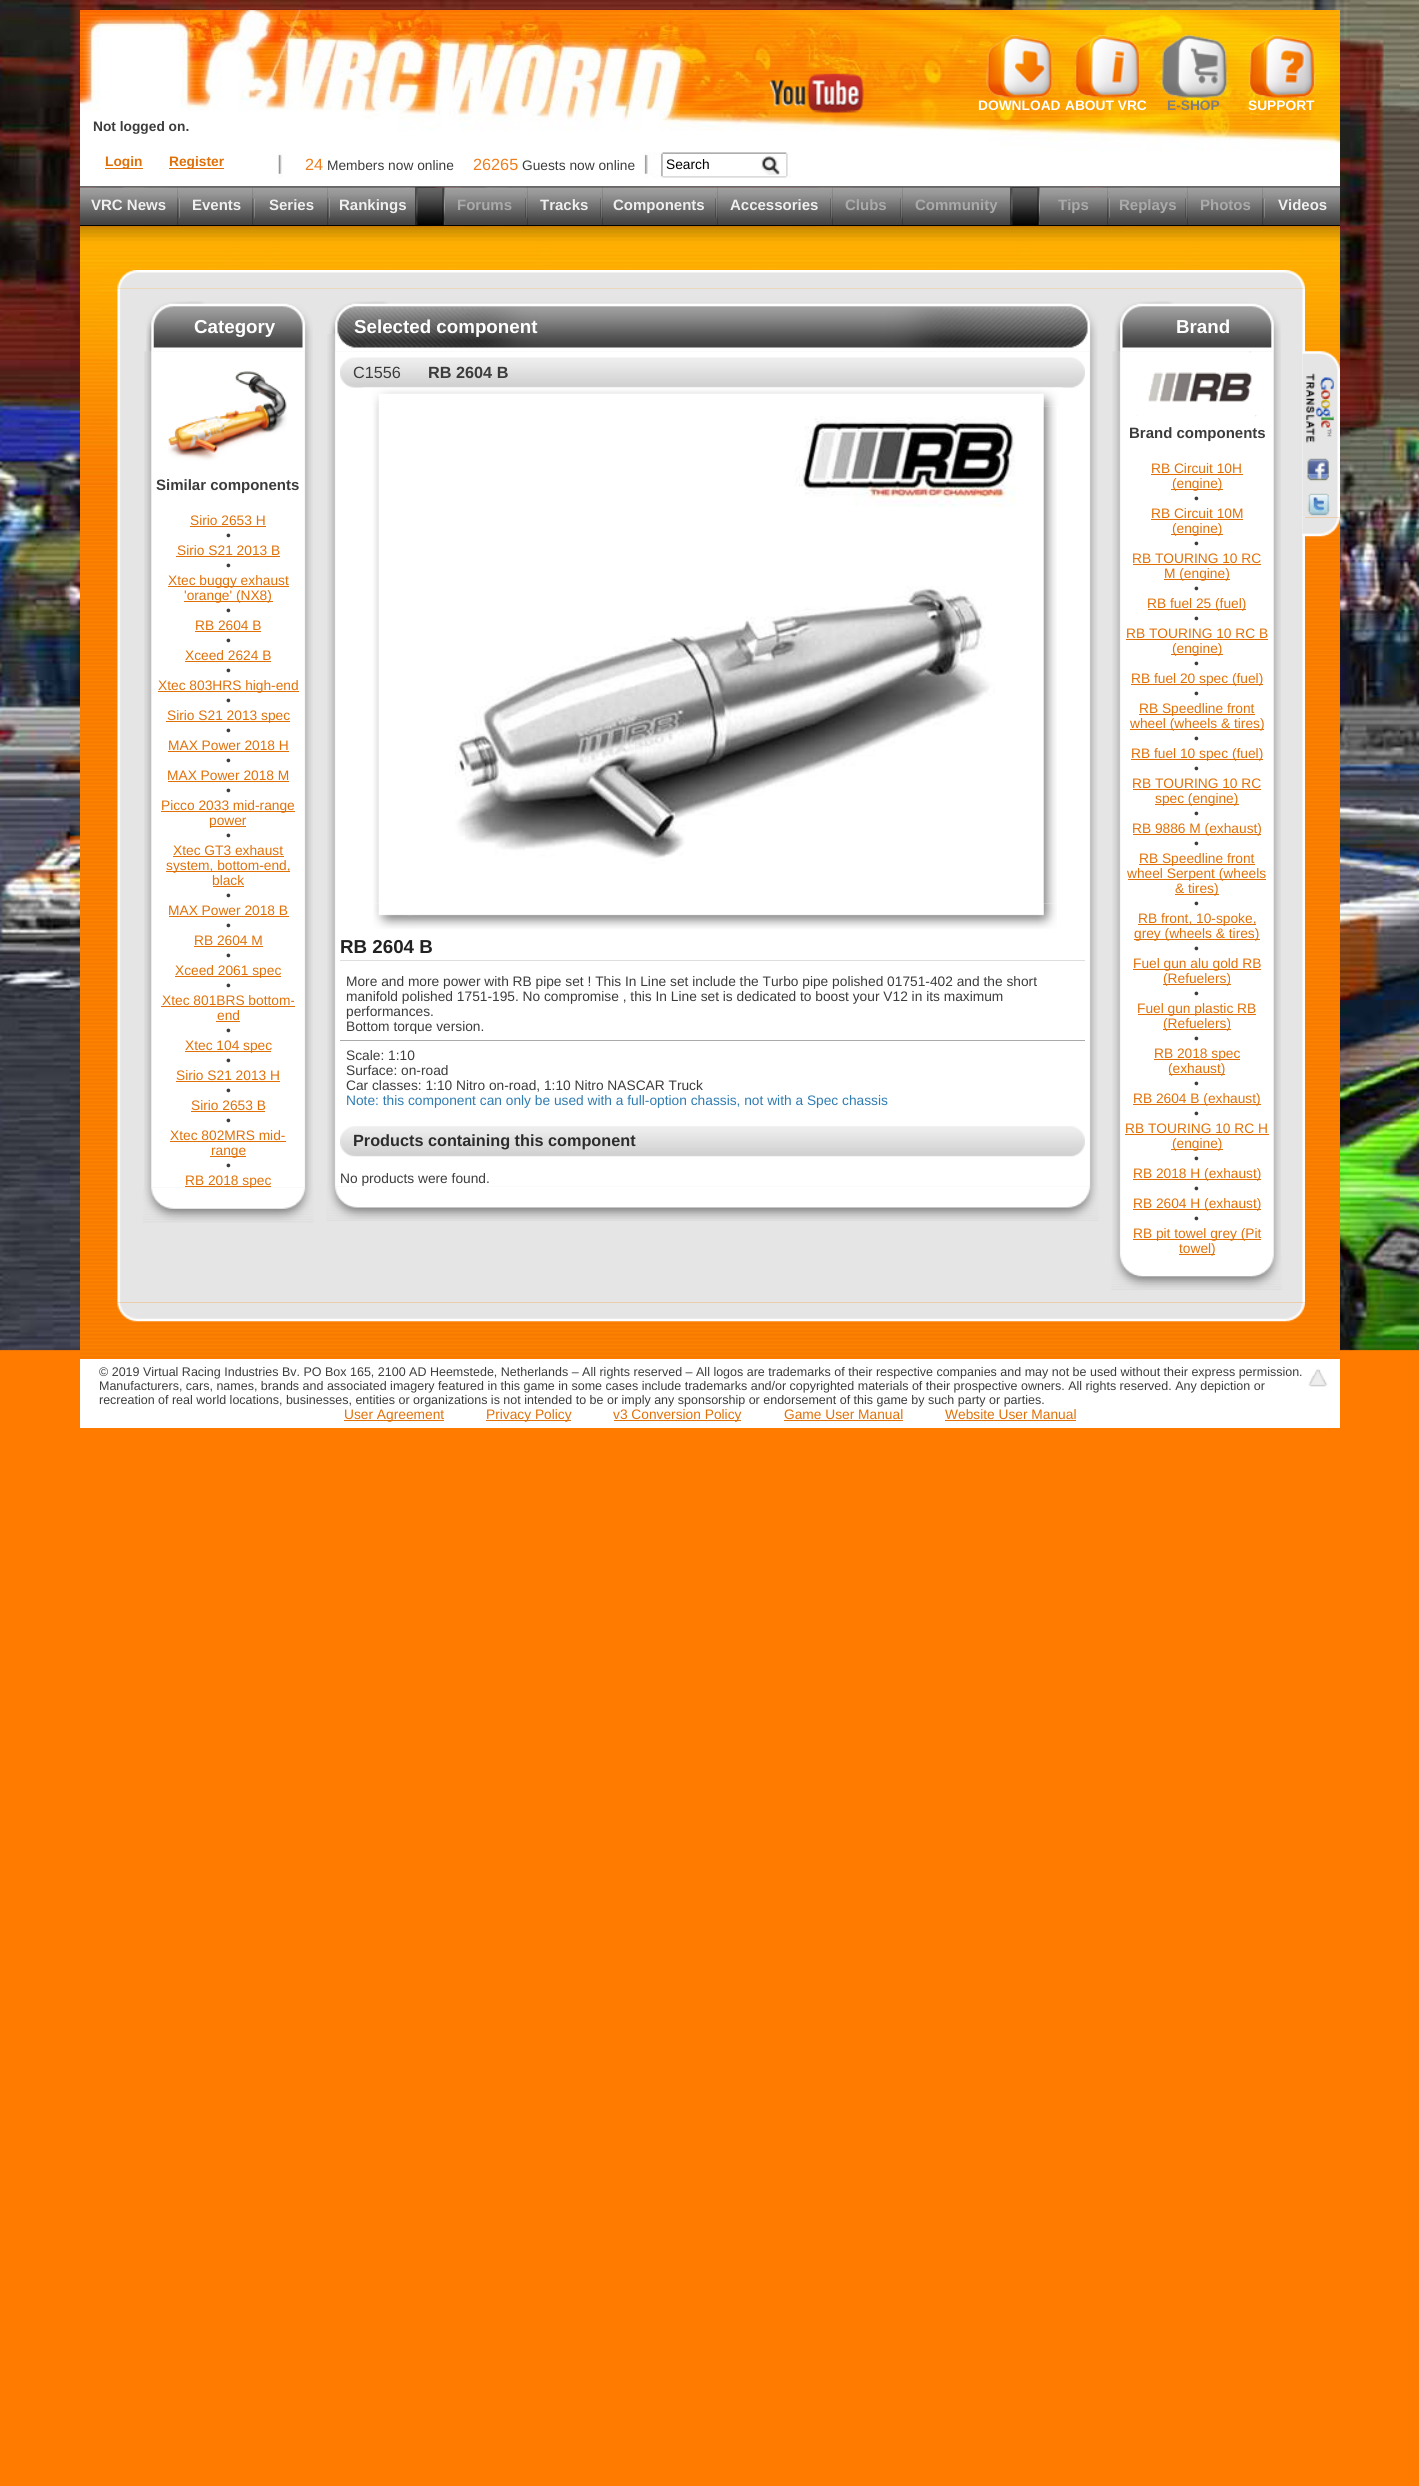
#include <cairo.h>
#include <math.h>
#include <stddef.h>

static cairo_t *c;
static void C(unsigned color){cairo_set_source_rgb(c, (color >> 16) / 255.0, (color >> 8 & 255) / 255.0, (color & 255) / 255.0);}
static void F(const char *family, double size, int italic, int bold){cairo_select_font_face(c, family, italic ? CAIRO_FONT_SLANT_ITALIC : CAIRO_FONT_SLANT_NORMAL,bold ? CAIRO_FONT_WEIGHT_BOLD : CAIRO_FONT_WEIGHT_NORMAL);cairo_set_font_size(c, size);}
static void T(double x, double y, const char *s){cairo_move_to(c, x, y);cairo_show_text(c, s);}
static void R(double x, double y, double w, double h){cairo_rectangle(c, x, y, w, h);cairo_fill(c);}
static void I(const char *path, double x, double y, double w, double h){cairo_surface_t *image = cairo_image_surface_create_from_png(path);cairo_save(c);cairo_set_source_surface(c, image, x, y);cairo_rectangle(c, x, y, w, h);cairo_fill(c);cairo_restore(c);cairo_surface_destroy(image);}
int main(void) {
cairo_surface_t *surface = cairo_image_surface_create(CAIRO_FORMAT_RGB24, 1419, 2486);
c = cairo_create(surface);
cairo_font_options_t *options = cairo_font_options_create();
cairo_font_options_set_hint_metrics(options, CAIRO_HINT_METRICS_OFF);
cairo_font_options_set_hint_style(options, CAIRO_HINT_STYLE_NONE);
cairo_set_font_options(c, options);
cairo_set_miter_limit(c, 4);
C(0xff7b00);
cairo_paint(c);
I("1.png",0,0,1419,1351);
I("2.png",80,10,1260,176);
I("3.png",769,73,95,40);
I("4.png",986,35,67,63);
F("Liberation Sans",13.75,0,1);
C(0xffffff);
T(978,110,"DOWNLOAD");
I("5.png",1074,35,67,63);
T(1065,110,"ABOUT VRC");
I("6.png",1161,35,67,63);
C(0x7e7e7e);
T(1167,110,"E-SHOP");
I("7.png",1248,35,68,63);
C(0xffffff);
T(1248,110,"SUPPORT");
C(0x3c3c3c);
T(93,131,"Not logged on.");
I("8.png",278,152,513,26);
C(0xe07109);
R(105,168,38,1);
T(105,166,"Login");
R(169,168,55,1);
T(169,166,"Register");
F("Liberation Sans",16.25,0,0);
C(0xee7e1c);
T(305,170,"24");
F("Liberation Sans",13.75,0,0);
C(0x3c3c3c);
T(327,170,"Members now online");
F("Liberation Sans",16.25,0,0);
C(0xee7e1c);
T(473,170,"26265");
F("Liberation Sans",13.75,0,0);
C(0x3c3c3c);
T(522,170,"Guests now online");
C(0x000000);
T(666,169,"Search");
I("9.png",761,155,19,20);
I("10.png",80,187,1260,38);
C(0x686868);
R(80,186,1260,1);
C(0x000000);
R(80,225,1260,1);
I("11.png",80,187,98,38);
F("Liberation Sans",15,0,1);
C(0xefefef);
T(91,210,"VRC News");
I("12.png",177,187,3,38);
I("13.png",180,187,73,38);
T(192,210,"Events");
I("14.png",252,187,3,38);
I("15.png",255,187,73,38);
T(269,210,"Series");
I("16.png",327,187,3,38);
I("17.png",330,187,85,38);
T(339,210,"Rankings");
I("18.png",415,187,3,38);
I("19.png",442,187,3,38);
I("20.png",445,187,80,38);
C(0xaaaaaa);
T(457,210,"Forums");
I("21.png",525,187,3,38);
I("22.png",527,187,73,38);
C(0xefefef);
T(540,210,"Tracks");
I("23.png",600,187,3,38);
I("24.png",602,187,113,38);
T(613,210,"Components");
I("25.png",715,187,3,38);
I("26.png",717,187,113,38);
T(730,210,"Accessories");
I("27.png",830,187,3,38);
I("28.png",832,187,68,38);
C(0xaaaaaa);
T(845,210,"Clubs");
I("29.png",900,187,3,38);
I("30.png",902,187,108,38);
T(915,210,"Community");
I("31.png",1010,187,3,38);
I("32.png",1037,187,3,38);
I("33.png",1040,187,68,38);
T(1058,210,"Tips");
I("34.png",1107,187,3,38);
I("35.png",1110,187,75,38);
T(1119,210,"Replays");
I("36.png",1185,187,3,38);
I("37.png",1187,187,76,38);
T(1200,210,"Photos");
I("38.png",1262,187,3,38);
I("39.png",1265,187,75,38);
C(0xefefef);
T(1278,210,"Videos");
I("40.png",80,226,1260,1132);
I("41.png",80,226,1260,260);
I("42.png",117,270,1188,19);
I("43.png",117,288,1188,1015);
I("44.png",146,301,167,51);
F("Liberation Sans",18.75,0,1);
C(0xffffff);
T(194,333,"Category");
I("45.png",144,351,169,837);
I("46.png",168,371,119,90);
F("Liberation Sans",15,0,1);
C(0x3c3c3c);
T(156,490,"Similar components");
F("Liberation Sans",13.75,0,0);
C(0xe07109);
T(190,525,"Sirio 2653 H");
R(190,526,76,1);
C(0x3c3c3c);
T(226,540,"•");
C(0xe07109);
T(177,555,"Sirio S21 2013 B");
R(176,556,104,1);
C(0x3c3c3c);
T(226,570,"•");
C(0xe07109);
R(168,586,121,1);
T(168,585,"Xtec buggy exhaust");
R(184,601,89,1);
T(184,600,"'orange' (NX8)");
C(0x3c3c3c);
T(226,615,"•");
C(0xe07109);
T(195,630,"RB 2604 B");
R(195,631,66,1);
C(0x3c3c3c);
T(226,645,"•");
C(0xe07109);
T(185,660,"Xceed 2624 B");
R(185,661,86,1);
C(0x3c3c3c);
T(226,675,"•");
C(0xe07109);
R(158,691,141,1);
T(158,690,"Xtec 803HRS high-end");
C(0x3c3c3c);
T(226,705,"•");
C(0xe07109);
R(166,721,124,1);
T(167,720,"Sirio S21 2013 spec");
C(0x3c3c3c);
T(226,735,"•");
C(0xe07109);
T(168,750,"MAX Power 2018 H");
R(168,751,121,1);
C(0x3c3c3c);
T(226,765,"•");
C(0xe07109);
T(167,780,"MAX Power 2018 M");
R(168,781,121,1);
C(0x3c3c3c);
T(226,795,"•");
C(0xe07109);
R(161,811,134,1);
T(161,810,"Picco 2033 mid-range");
R(210,826,36,1);
T(209,825,"power");
C(0x3c3c3c);
T(226,840,"•");
C(0xe07109);
T(173,855,"Xtec GT3 exhaust");
R(173,856,111,1);
R(166,871,124,1);
T(166,870,"system, bottom-end,");
T(212,885,"black");
R(213,886,31,1);
C(0x3c3c3c);
T(226,900,"•");
C(0xe07109);
T(168,915,"MAX Power 2018 B");
R(169,916,120,1);
C(0x3c3c3c);
T(226,930,"•");
C(0xe07109);
T(194,945,"RB 2604 M");
R(194,946,69,1);
C(0x3c3c3c);
T(226,960,"•");
C(0xe07109);
R(175,976,106,1);
T(175,975,"Xceed 2061 spec");
C(0x3c3c3c);
T(226,990,"•");
C(0xe07109);
T(162,1005,"Xtec 801BRS bottom-");
R(161,1006,134,1);
T(217,1020,"end");
R(216,1021,24,1);
C(0x3c3c3c);
T(226,1035,"•");
C(0xe07109);
R(185,1051,86,1);
T(185,1050,"Xtec 104 spec");
C(0x3c3c3c);
T(226,1065,"•");
C(0xe07109);
T(176,1080,"Sirio S21 2013 H");
R(176,1081,104,1);
C(0x3c3c3c);
T(226,1095,"•");
C(0xe07109);
T(191,1110,"Sirio 2653 B");
R(191,1111,74,1);
C(0x3c3c3c);
T(226,1125,"•");
C(0xe07109);
T(170,1140,"Xtec 802MRS mid-");
R(170,1141,116,1);
R(210,1156,36,1);
T(211,1155,"range");
C(0x3c3c3c);
T(226,1170,"•");
C(0xe07109);
R(185,1186,86,1);
I("47.png",143,1187,171,36);
T(185,1185,"RB 2018 spec");
I("48.png",327,301,771,51);
F("Liberation Sans",18.75,0,1);
C(0xffffff);
T(354,333,"Selected component");
I("49.png",327,351,771,836);
I("50.png",340,357,745,31);
F("Liberation Sans",16.25,0,0);
C(0x3c3c3c);
T(353,378,"C1556");
F("Liberation Sans",16.25,0,1);
T(428,378,"RB 2604 B");
I("51.png",362,387,701,20);
I("52.png",373,406,684,498);
I("53.png",455,416,561,448);
I("54.png",373,903,684,26);
C(0xdedede);
R(340,960,745,1);
F("Liberation Sans",18.75,0,1);
C(0x222222);
T(340,953,"RB 2604 B");
F("Liberation Sans",13.75,0,0);
C(0x3c3c3c);
T(346,986,"More and more power with RB pipe set ! This In Line set include the Turbo pipe polished 01751-402 and the short");
T(346,1001,"manifold polished 1751-195. No compromise , this In Line set is dedicated to boost your V12 in its maximum");
T(346,1016,"performances.");
T(346,1031,"Bottom torque version.");
C(0xaaaaaa);
R(340,1040,745,1);
C(0x3c3c3c);
T(346,1060,"Scale: 1:10");
T(346,1075,"Surface: on-road");
T(346,1090,"Car classes: 1:10 Nitro on-road, 1:10 Nitro NASCAR Truck");
C(0x2f7cb2);
T(346,1105,"Note: this component can only be used with a full-option chassis, not with a Spec chassis");
I("55.png",340,1126,745,31);
F("Liberation Sans",16.25,0,1);
C(0x2d2d2d);
T(353,1146,"Products containing this component");
F("Liberation Sans",13.75,0,0);
C(0x3c3c3c);
T(340,1183,"No products were found.");
I("56.png",326,1186,773,35);
I("57.png",1114,301,167,51);
F("Liberation Sans",18.75,0,1);
C(0xffffff);
T(1176,333,"Brand");
I("58.png",1112,351,169,904);
I("59.png",1136,351,121,66);
F("Liberation Sans",15,0,1);
C(0x3c3c3c);
T(1129,438,"Brand components");
F("Liberation Sans",13.75,0,0);
C(0xe07109);
T(1151,473,"RB Circuit 10H");
R(1151,474,92,1);
R(1171,489,52,1);
T(1172,488,"(engine)");
C(0x3c3c3c);
T(1194,503,"•");
C(0xe07109);
T(1151,518,"RB Circuit 10M");
R(1151,519,92,1);
R(1171,534,52,1);
T(1172,533,"(engine)");
C(0x3c3c3c);
T(1194,548,"•");
C(0xe07109);
T(1132,563,"RB TOURING 10 RC");
R(1133,564,128,1);
R(1164,579,66,1);
T(1164,578,"M (engine)");
C(0x3c3c3c);
T(1194,593,"•");
C(0xe07109);
R(1148,609,98,1);
T(1147,608,"RB fuel 25 (fuel)");
C(0x3c3c3c);
T(1194,623,"•");
C(0xe07109);
T(1126,638,"RB TOURING 10 RC B");
R(1126,639,142,1);
R(1171,654,52,1);
T(1172,653,"(engine)");
C(0x3c3c3c);
T(1194,668,"•");
C(0xe07109);
R(1131,684,132,1);
T(1131,683,"RB fuel 20 spec (fuel)");
C(0x3c3c3c);
T(1194,698,"•");
C(0xe07109);
R(1139,714,116,1);
T(1139,713,"RB Speedline front");
R(1130,729,134,1);
T(1130,728,"wheel (wheels & tires)");
C(0x3c3c3c);
T(1194,743,"•");
C(0xe07109);
R(1131,759,132,1);
T(1131,758,"RB fuel 10 spec (fuel)");
C(0x3c3c3c);
T(1194,773,"•");
C(0xe07109);
T(1132,788,"RB TOURING 10 RC");
R(1133,789,128,1);
R(1155,804,84,1);
T(1155,803,"spec (engine)");
C(0x3c3c3c);
T(1194,818,"•");
C(0xe07109);
R(1133,834,128,1);
T(1132,833,"RB 9886 M (exhaust)");
C(0x3c3c3c);
T(1194,848,"•");
C(0xe07109);
R(1139,864,116,1);
T(1139,863,"RB Speedline front");
R(1128,879,138,1);
T(1127,878,"wheel Serpent (wheels");
R(1175,894,44,1);
T(1175,893,"& tires)");
C(0x3c3c3c);
T(1194,908,"•");
C(0xe07109);
R(1138,924,118,1);
T(1138,923,"RB front, 10-spoke,");
R(1134,939,126,1);
T(1134,938,"grey (wheels & tires)");
C(0x3c3c3c);
T(1194,953,"•");
C(0xe07109);
R(1133,969,128,1);
T(1133,968,"Fuel gun alu gold RB");
R(1163,984,68,1);
T(1163,983,"(Refuelers)");
C(0x3c3c3c);
T(1194,998,"•");
C(0xe07109);
R(1138,1014,118,1);
T(1137,1013,"Fuel gun plastic RB");
R(1163,1029,68,1);
T(1163,1028,"(Refuelers)");
C(0x3c3c3c);
T(1194,1043,"•");
C(0xe07109);
R(1154,1059,86,1);
T(1154,1058,"RB 2018 spec");
R(1169,1074,56,1);
T(1168,1073,"(exhaust)");
C(0x3c3c3c);
T(1194,1088,"•");
C(0xe07109);
R(1133,1104,128,1);
T(1133,1103,"RB 2604 B (exhaust)");
C(0x3c3c3c);
T(1194,1118,"•");
C(0xe07109);
T(1125,1133,"RB TOURING 10 RC H");
R(1125,1134,144,1);
R(1171,1149,52,1);
T(1172,1148,"(engine)");
C(0x3c3c3c);
T(1194,1163,"•");
C(0xe07109);
R(1133,1179,128,1);
T(1133,1178,"RB 2018 H (exhaust)");
C(0x3c3c3c);
T(1194,1193,"•");
C(0xe07109);
R(1133,1209,128,1);
T(1133,1208,"RB 2604 H (exhaust)");
C(0x3c3c3c);
T(1194,1223,"•");
C(0xe07109);
R(1133,1239,128,1);
T(1133,1238,"RB pit towel grey (Pit");
R(1179,1254,36,1);
I("60.png",1111,1255,171,35);
T(1179,1253,"towel)");
I("61.png",117,1302,1188,20);
I("62.png",1302,351,38,19);
I("63.png",1302,370,38,148);
I("64.png",1306,373,28,70);
I("65.png",1306,458,24,24);
I("66.png",1307,493,23,23);
I("67.png",1302,517,38,20);
C(0xffffff);
R(80,1359,1260,69);
F("Liberation Sans",12.5,0,0);
C(0x3c3c3c);
T(99,1376,"© 2019 Virtual Racing Industries Bv. PO Box 165, 2100 AD Heemstede, Netherlands – All rights reserved – All logos are trademarks of their respective companies and may not be used without their express permission.");
T(99,1390,"Manufacturers, cars, names, brands and associated imagery featured in this game in some cases include trademarks and/or copyrighted materials of their prospective owners. All rights reserved. Any depiction or");
T(99,1404,"recreation of real world locations, businesses, entities or organizations is not intended to be or imply any sponsorship or endorsement of this game by such party or parties.");
I("68.png",1308,1369,20,18);
C(0xe07109);
R(344,1420,100,1);
F("Liberation Sans",13.75,0,0);
T(344,1419,"User Agreement");
R(486,1420,85,1);
T(486,1419,"Privacy Policy");
R(614,1420,127,1);
T(613,1419,"v3 Conversion Policy");
T(784,1419,"Game User Manual");
R(784,1420,119,1);
T(945,1419,"Website User Manual");
R(945,1420,131,1);
cairo_surface_write_to_png(surface, "o.png");
cairo_font_options_destroy(options);
cairo_destroy(c);
cairo_surface_destroy(surface);
return 0;
}
